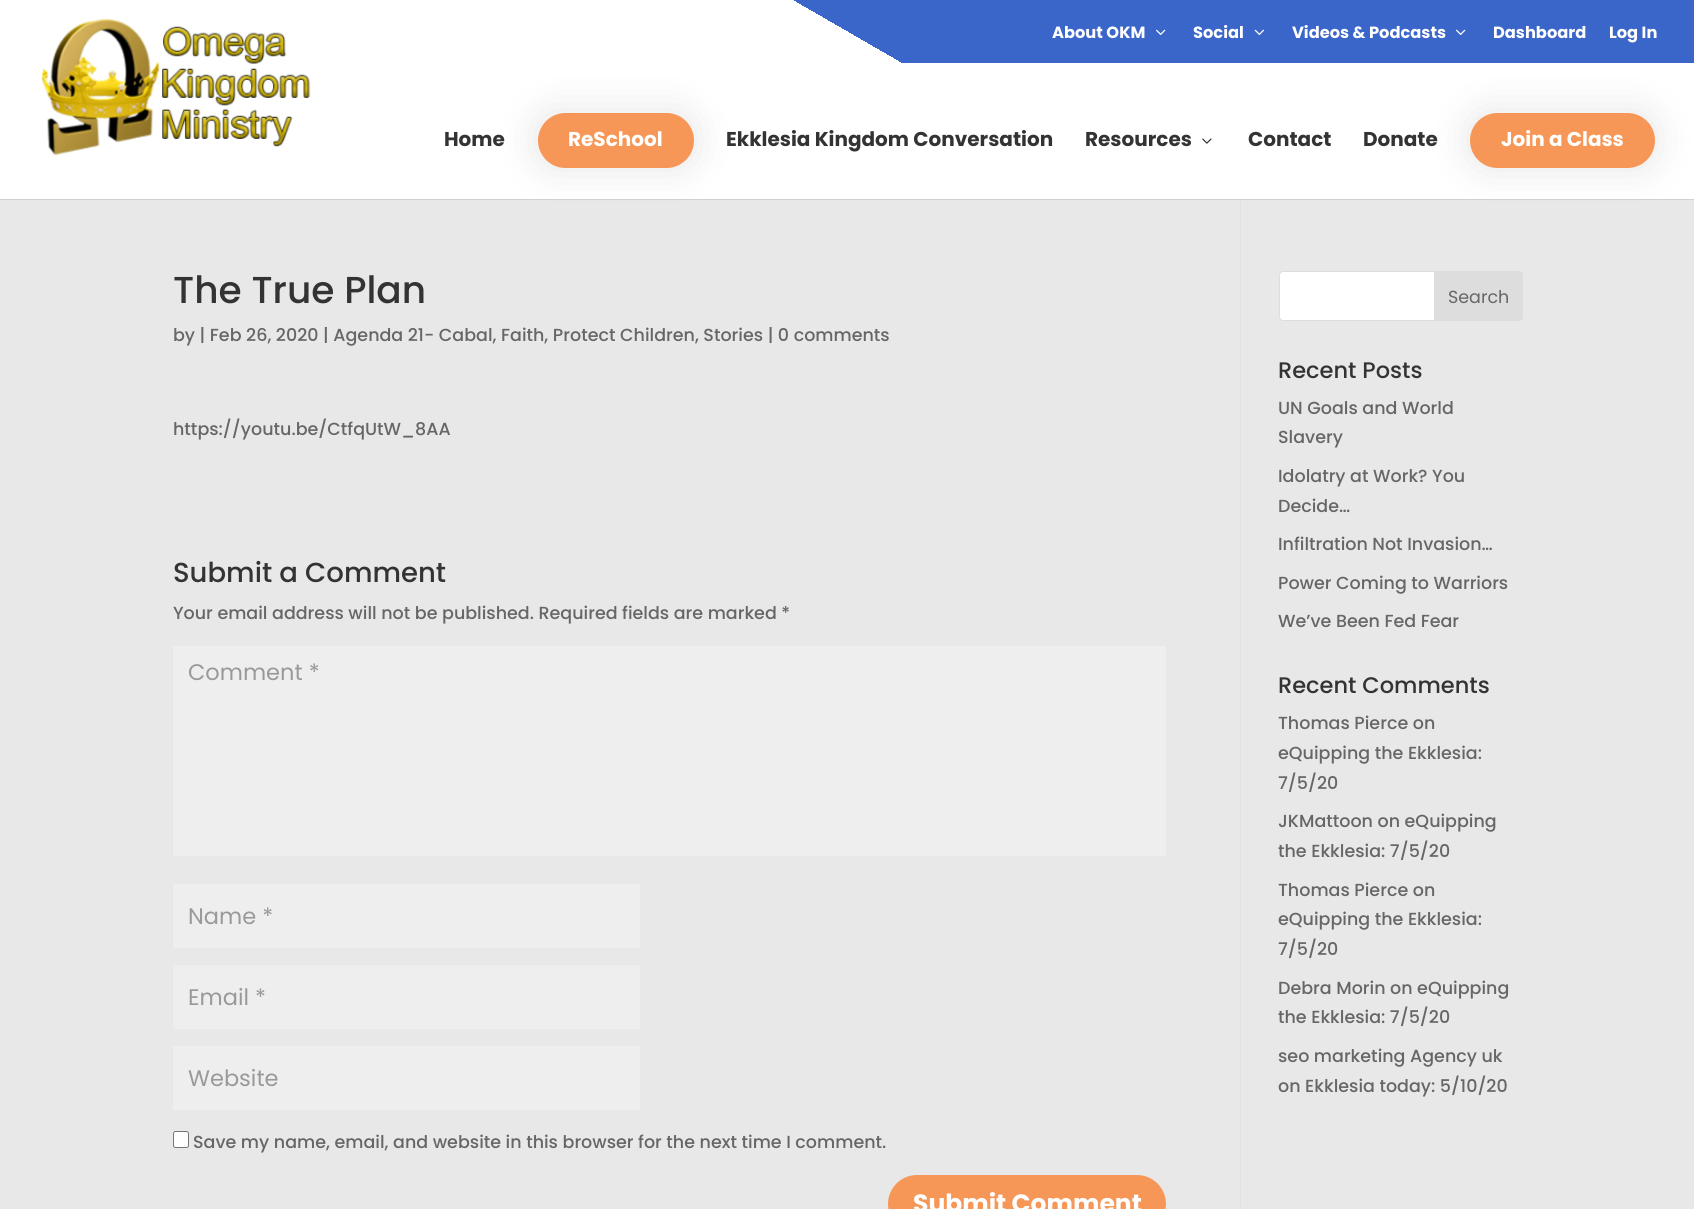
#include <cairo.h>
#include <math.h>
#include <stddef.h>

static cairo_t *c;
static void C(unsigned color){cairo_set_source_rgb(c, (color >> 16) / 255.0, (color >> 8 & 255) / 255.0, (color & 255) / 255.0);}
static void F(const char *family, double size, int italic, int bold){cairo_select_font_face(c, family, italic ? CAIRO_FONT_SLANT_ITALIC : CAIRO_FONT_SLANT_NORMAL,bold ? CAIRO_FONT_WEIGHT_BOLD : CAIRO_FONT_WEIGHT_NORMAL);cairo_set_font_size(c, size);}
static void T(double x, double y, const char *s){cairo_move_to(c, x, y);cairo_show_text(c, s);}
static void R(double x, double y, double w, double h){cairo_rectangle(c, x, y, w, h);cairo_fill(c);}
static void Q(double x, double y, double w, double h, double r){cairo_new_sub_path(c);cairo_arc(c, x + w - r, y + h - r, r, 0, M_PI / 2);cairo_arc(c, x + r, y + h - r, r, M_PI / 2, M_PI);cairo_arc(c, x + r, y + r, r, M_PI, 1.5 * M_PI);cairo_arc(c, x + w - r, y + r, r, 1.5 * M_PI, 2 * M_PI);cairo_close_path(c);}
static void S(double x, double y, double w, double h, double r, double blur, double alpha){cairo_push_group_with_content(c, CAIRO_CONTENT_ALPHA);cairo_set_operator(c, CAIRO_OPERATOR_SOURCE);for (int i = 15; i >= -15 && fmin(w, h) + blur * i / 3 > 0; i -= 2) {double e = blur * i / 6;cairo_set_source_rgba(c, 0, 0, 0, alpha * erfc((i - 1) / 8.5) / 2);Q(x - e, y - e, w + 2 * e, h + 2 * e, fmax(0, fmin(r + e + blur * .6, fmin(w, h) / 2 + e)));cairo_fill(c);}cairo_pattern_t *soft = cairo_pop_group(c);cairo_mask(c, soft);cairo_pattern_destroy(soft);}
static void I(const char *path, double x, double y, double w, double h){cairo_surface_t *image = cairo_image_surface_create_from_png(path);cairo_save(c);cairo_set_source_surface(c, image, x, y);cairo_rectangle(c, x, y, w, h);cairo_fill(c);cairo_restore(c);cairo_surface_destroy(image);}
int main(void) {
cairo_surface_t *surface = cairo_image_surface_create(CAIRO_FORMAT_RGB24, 1694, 1209);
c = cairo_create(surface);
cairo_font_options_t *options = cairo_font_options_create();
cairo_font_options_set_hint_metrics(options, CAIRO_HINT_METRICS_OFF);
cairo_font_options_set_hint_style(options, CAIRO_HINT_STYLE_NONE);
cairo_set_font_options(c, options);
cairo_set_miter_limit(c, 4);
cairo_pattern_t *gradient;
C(0xffffff);
cairo_paint(c);
gradient = cairo_pattern_create_linear(622,422,1073,-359);
cairo_pattern_add_color_stop_rgba(gradient,.5,1,1,1,1);
cairo_pattern_add_color_stop_rgba(gradient,.5,0.227,0.4,0.792,1);
cairo_set_source(c,gradient);
cairo_pattern_destroy(gradient);
R(794,0,900,63);
F("Poppins",16.25,0,1);
C(0xffffff);
T(1052,38,"About OKM");
I("1.png",1156,29,10,6);
T(1193,38,"Social");
I("2.png",1254,29,10,6);
T(1292,38,"Videos & Podcasts");
I("1.png",1456,29,10,6);
T(1493,38,"Dashboard");
T(1609,38,"Log In");
I("3.png",42,18,269,138);
F("Poppins",20,0,1);
C(0x333333);
T(444,146,"Home");
C(0xe8e8e8);
R(0,200,1694,1009);
C(0xd1d1d1);
R(0,199,1694,1);
C(0x000000);
S(536,111,159,58,29,19,.1);
C(0xf79757);
Q(538,113,156,55,27.5);
cairo_fill(c);
C(0xffffff);
T(568,146,"ReSchool");
C(0x333333);
T(726,146,"Ekklesia Kingdom Conversation");
T(1085,146,"Resources");
I("4.png",1202,138,10,6);
T(1248,146,"Contact");
T(1363,146,"Donate");
C(0x000000);
S(1469,111,187,58,29,19,.1);
C(0xf79757);
Q(1470,113,185,55,27.5);
cairo_fill(c);
C(0xffffff);
T(1501,146,"Join a Class");
C(0xe2e2e2);
R(1240,199,1,1010);
C(0xcbcbcb);
R(1240,199,1,1);
F("Poppins Medium",37.5,0,0);
C(0x333333);
T(173,303,"The True Plan");
F("Poppins Medium",17.5,0,0);
C(0x666666);
T(173,341,"by | Feb 26, 2020 | Agenda 21- Cabal, Faith, Protect Children, Stories | 0 comments");
T(173,435,"https://youtu.be/CtfqUtW_8AA");
F("Poppins Medium",27.5,0,0);
C(0x333333);
T(173,582,"Submit a Comment");
F("Poppins Medium",17.5,0,0);
C(0x666666);
T(173,619,"Your email address will not be published. Required fields are marked *");
C(0xeeeeee);
R(173,646,993,210);
F("Poppins",22.5,0,0);
C(0x999999);
T(188,680,"Comment *");
C(0xeeeeee);
R(173,884,467,64);
C(0x999999);
T(188,924,"Name *");
C(0xeeeeee);
R(173,965,467,64);
C(0x999999);
T(188,1005,"Email *");
C(0xeeeeee);
R(173,1046,467,64);
C(0x999999);
T(188,1086,"Website");
C(0xffffff);
Q(173.5,1131.5,15,16,2);
cairo_fill_preserve(c);
C(0x767676);
cairo_set_line_width(c,1);
cairo_stroke(c);
F("Poppins Medium",17.5,0,0);
C(0x666666);
T(193,1148,"Save my name, email, and website in this browser for the next time I comment.");
C(0xf79757);
Q(888,1175,278,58,29);
cairo_fill(c);
F("Poppins",25,0,1);
C(0xffffff);
T(913,1212,"Submit Comment");
Q(1279.5,271.5,243,49,3.5);
cairo_fill_preserve(c);
C(0xdddddd);
cairo_stroke(c);
cairo_new_path(c);
cairo_move_to(c,1434,271);
cairo_line_to(c,1519,271);
cairo_curve_to(c,1521,271,1523,273,1523,275);
cairo_line_to(c,1523,317);
cairo_curve_to(c,1523,319,1521,321,1519,321);
cairo_line_to(c,1434,321);
cairo_close_path(c);
cairo_fill(c);
F("Poppins",17.5,0,0);
C(0x666666);
T(1448,303,"Search");
F("Poppins Medium",22.5,0,0);
C(0x333333);
T(1278,378,"Recent Posts");
F("Poppins Medium",17.5,0,0);
C(0x666666);
T(1278,414,"UN Goals and World");
T(1278,443,"Slavery");
T(1278,482,"Idolatry at Work? You");
T(1278,512,"Decide…");
T(1278,550,"Infiltration Not Invasion…");
T(1278,589,"Power Coming to Warriors");
T(1278,627,"We’ve Been Fed Fear");
F("Poppins Medium",22.5,0,0);
C(0x333333);
T(1278,693,"Recent Comments");
F("Poppins Medium",17.5,0,0);
C(0x666666);
T(1278,729,"Thomas Pierce on");
T(1278,759,"eQuipping the Ekklesia:");
T(1278,789,"7/5/20");
T(1278,827,"JKMattoon on eQuipping");
T(1278,857,"the Ekklesia: 7/5/20");
T(1278,896,"Thomas Pierce on");
T(1278,925,"eQuipping the Ekklesia:");
T(1278,955,"7/5/20");
T(1278,994,"Debra Morin on eQuipping");
T(1278,1023,"the Ekklesia: 7/5/20");
T(1278,1062,"seo marketing Agency uk");
T(1278,1092,"on Ekklesia today: 5/10/20");
cairo_surface_write_to_png(surface, "o.png");
cairo_font_options_destroy(options);
cairo_destroy(c);
cairo_surface_destroy(surface);
return 0;
}
